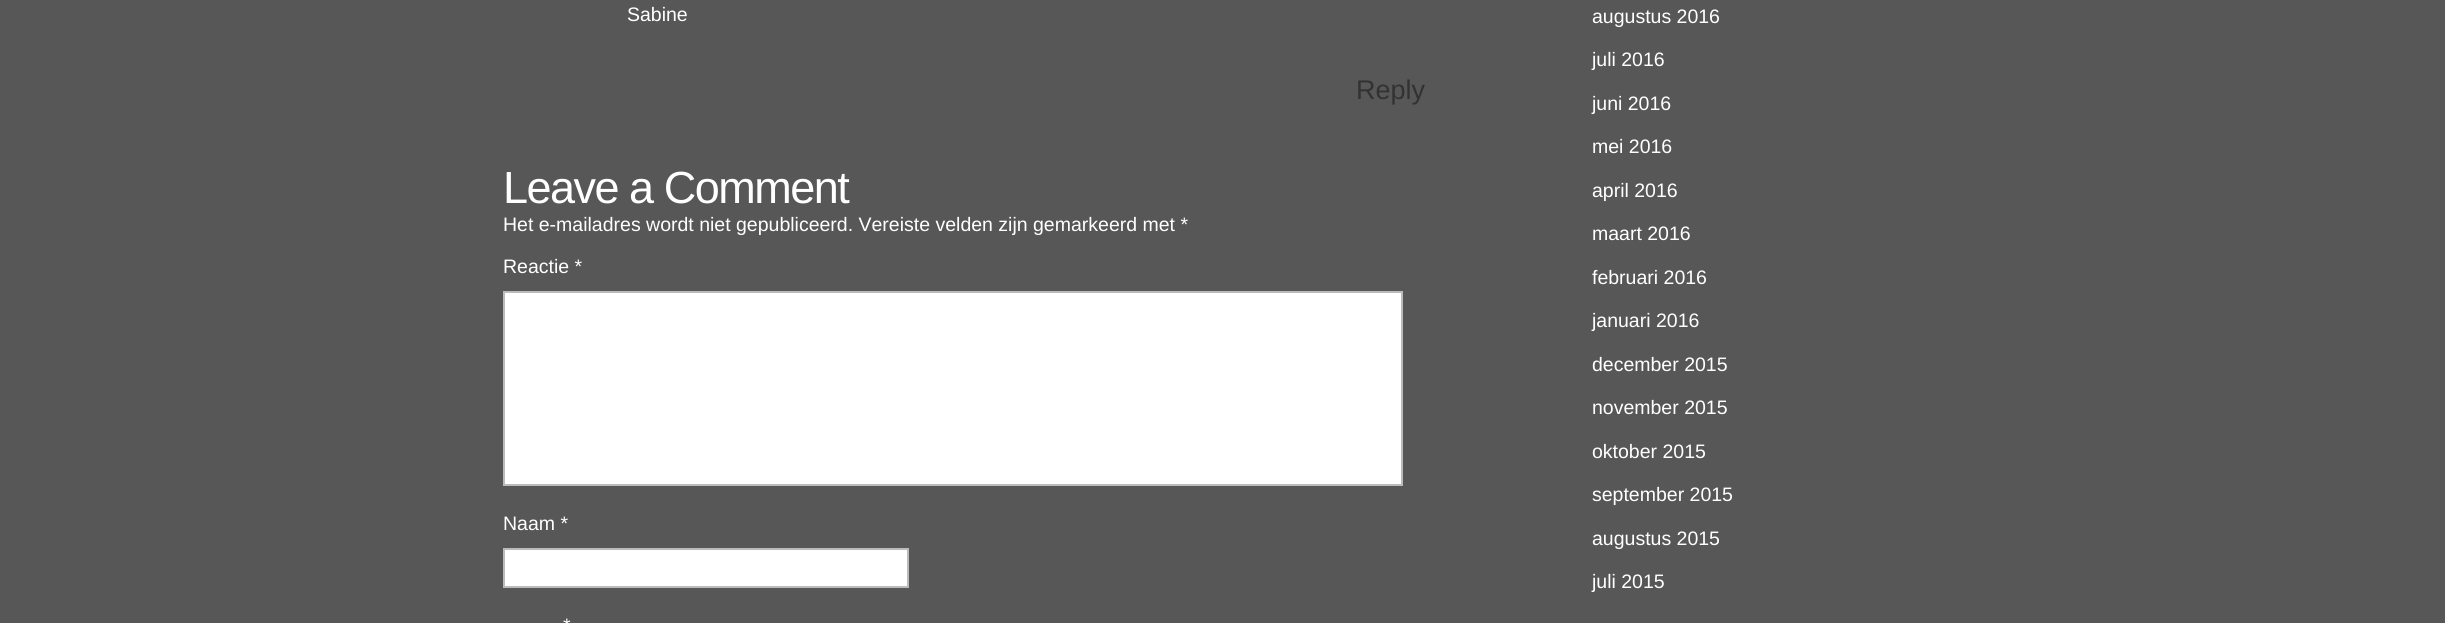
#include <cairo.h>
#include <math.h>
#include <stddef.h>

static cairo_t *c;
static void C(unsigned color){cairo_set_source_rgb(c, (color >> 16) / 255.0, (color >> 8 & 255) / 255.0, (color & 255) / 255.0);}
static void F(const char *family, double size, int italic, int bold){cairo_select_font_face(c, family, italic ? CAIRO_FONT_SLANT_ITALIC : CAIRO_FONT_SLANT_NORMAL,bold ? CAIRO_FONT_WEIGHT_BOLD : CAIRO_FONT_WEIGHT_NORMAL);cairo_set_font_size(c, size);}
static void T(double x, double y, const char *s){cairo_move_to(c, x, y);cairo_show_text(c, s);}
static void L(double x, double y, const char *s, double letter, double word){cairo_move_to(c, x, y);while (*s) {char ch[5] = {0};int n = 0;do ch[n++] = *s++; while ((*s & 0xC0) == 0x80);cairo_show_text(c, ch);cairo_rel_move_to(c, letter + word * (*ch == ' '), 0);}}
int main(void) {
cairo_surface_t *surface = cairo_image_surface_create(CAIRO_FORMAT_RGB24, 2445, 623);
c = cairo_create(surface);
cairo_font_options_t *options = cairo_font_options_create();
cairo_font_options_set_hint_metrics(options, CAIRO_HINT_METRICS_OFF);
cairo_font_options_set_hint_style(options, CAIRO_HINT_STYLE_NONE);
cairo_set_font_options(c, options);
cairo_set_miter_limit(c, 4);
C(0x575757);
cairo_paint(c);
F("Liberation Sans",19.5,0,0);
C(0xffffff);
T(627,21,"Sabine");
F("Liberation Sans",27,0,0);
C(0x323232);
T(1356,99,"Reply");
F("Liberation Sans",45,0,0);
C(0xffffff);
L(503,203,"Leave a Comment",-1.5,0);
F("Liberation Sans",19.5,0,0);
T(503,231,"Het e-mailadres wordt niet gepubliceerd. Vereiste velden zijn gemarkeerd met *");
T(503,273,"Reactie *");
cairo_rectangle(c,504,292,898,193);
cairo_fill_preserve(c);
C(0xbbbbbb);
cairo_stroke(c);
C(0xffffff);
T(503,530,"Naam *");
cairo_rectangle(c,504,549,404,38);
cairo_fill_preserve(c);
C(0xbbbbbb);
cairo_stroke(c);
C(0xffffff);
T(563,632,"*");
T(1592,23,"augustus 2016");
T(1592,66,"juli 2016");
T(1592,110,"juni 2016");
T(1592,153,"mei 2016");
T(1592,197,"april 2016");
T(1592,240,"maart 2016");
T(1592,284,"februari 2016");
T(1592,327,"januari 2016");
T(1592,371,"december 2015");
T(1592,414,"november 2015");
T(1592,458,"oktober 2015");
T(1592,501,"september 2015");
T(1592,545,"augustus 2015");
T(1592,588,"juli 2015");
cairo_surface_write_to_png(surface, "o.png");
cairo_font_options_destroy(options);
cairo_destroy(c);
cairo_surface_destroy(surface);
return 0;
}
